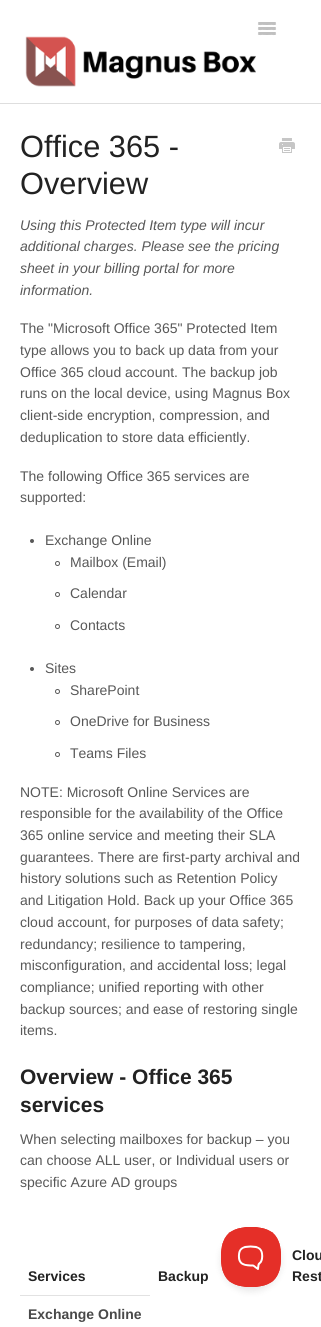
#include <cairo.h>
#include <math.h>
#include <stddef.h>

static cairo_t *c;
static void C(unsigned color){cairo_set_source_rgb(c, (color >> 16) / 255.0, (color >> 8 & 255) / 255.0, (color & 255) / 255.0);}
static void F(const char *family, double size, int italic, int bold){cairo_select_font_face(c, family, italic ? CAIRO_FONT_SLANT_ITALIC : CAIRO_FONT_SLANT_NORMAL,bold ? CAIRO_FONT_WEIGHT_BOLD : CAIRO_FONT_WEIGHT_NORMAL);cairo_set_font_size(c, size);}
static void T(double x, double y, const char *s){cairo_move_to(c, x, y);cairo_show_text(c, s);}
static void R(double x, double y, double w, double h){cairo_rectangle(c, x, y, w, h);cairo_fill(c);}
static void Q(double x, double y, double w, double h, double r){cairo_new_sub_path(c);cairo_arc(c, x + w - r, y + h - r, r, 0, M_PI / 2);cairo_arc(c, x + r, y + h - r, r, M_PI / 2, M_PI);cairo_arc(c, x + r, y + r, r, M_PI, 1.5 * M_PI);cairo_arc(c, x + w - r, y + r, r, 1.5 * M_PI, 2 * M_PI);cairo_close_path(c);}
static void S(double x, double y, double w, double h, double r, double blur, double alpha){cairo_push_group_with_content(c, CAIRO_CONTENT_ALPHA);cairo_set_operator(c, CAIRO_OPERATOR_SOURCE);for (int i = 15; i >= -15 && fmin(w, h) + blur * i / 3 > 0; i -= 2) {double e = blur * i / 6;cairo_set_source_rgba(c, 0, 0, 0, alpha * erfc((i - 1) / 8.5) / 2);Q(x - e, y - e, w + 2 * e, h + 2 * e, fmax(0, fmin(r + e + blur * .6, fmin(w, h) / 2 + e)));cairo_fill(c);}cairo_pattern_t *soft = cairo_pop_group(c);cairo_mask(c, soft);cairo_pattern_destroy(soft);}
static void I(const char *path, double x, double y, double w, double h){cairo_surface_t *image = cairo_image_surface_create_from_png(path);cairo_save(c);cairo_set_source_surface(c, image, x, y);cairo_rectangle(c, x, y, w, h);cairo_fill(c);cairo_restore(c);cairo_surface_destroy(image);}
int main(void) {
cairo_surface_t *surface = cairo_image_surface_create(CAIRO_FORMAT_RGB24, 321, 1327);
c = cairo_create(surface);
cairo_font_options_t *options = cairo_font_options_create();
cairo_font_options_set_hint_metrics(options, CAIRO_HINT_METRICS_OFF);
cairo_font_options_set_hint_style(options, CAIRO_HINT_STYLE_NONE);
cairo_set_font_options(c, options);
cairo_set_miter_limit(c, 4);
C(0xffffff);
cairo_paint(c);
C(0xbfbfbf);
cairo_new_path(c);
cairo_move_to(c,258,23.5);
cairo_curve_to(c,257,25.5,261.5,25,261.5,25);
cairo_line_to(c,272.5,25);
cairo_curve_to(c,272.5,25,277,25.5,276,23.5);
cairo_curve_to(c,275,24.5,268.5,24,267,24);
cairo_curve_to(c,265.5,24,259,24.5,258,23.5);
cairo_close_path(c);
cairo_fill(c);
C(0xc0c0c0);
Q(258,22,18,2,1);
cairo_fill(c);
C(0xbfbfbf);
cairo_new_path(c);
cairo_move_to(c,258,28.5);
cairo_curve_to(c,257,30.5,261.5,30,261.5,30);
cairo_line_to(c,272.5,30);
cairo_curve_to(c,272.5,30,277,30.5,276,28.5);
cairo_curve_to(c,275,29.5,268.5,29,267,29);
cairo_curve_to(c,265.5,29,259,29.5,258,28.5);
cairo_close_path(c);
cairo_fill(c);
C(0xc0c0c0);
Q(258,27,18,2,1);
cairo_fill(c);
C(0xbfbfbf);
cairo_new_path(c);
cairo_move_to(c,258,33.5);
cairo_curve_to(c,257,35.5,261.5,35,261.5,35);
cairo_line_to(c,272.5,35);
cairo_curve_to(c,272.5,35,277,35.5,276,33.5);
cairo_curve_to(c,275,34.5,268.5,34,267,34);
cairo_curve_to(c,265.5,34,259,34.5,258,33.5);
cairo_close_path(c);
cairo_fill(c);
C(0xc0c0c0);
Q(258,32,18,2,1);
cairo_fill(c);
I("1.png",25,36,231,51);
C(0xdedede);
R(0,103,321,1);
F("Liberation Sans",30.75,0,0);
C(0x222222);
T(20,157,"Office 365 -");
T(20,194,"Overview");
I("2.png",279,138,16,15);
F("Liberation Sans",14,1,0);
C(0x585858);
T(20,230,"Using this Protected Item type will incur");
T(20,251,"additional charges. Please see the pricing");
T(20,273,"sheet in your billing portal for more");
T(20,295,"information.");
F("Liberation Sans",14,0,0);
T(20,333,"The \"Microsoft Office 365\" Protected Item");
T(20,355,"type allows you to back up data from your");
T(20,377,"Office 365 cloud account. The backup job");
T(20,398,"runs on the local device, using Magnus Box");
T(20,420,"client-side encryption, compression, and");
T(20,442,"deduplication to store data efficiently.");
T(20,481,"The following Office 365 services are");
T(20,502,"supported:");
cairo_new_path(c);
cairo_arc(c,32,541,2,0,2 * M_PI);
cairo_fill(c);
T(45,545,"Exchange Online");
cairo_new_path(c);
cairo_arc(c,57.5,563.5,2,0,2 * M_PI);
cairo_set_line_width(c,1);
cairo_stroke(c);
T(70,567,"Mailbox (Email)");
cairo_new_path(c);
cairo_arc(c,57.5,594.5,2,0,2 * M_PI);
cairo_stroke(c);
T(70,598,"Calendar");
cairo_new_path(c);
cairo_arc(c,57.5,626.5,2,0,2 * M_PI);
cairo_stroke(c);
T(70,630,"Contacts");
cairo_new_path(c);
cairo_arc(c,32,669,2,0,2 * M_PI);
cairo_fill(c);
T(45,673,"Sites");
cairo_new_path(c);
cairo_arc(c,57.5,691.5,2,0,2 * M_PI);
cairo_stroke(c);
T(70,695,"SharePoint");
cairo_new_path(c);
cairo_arc(c,57.5,722.5,2,0,2 * M_PI);
cairo_stroke(c);
T(70,726,"OneDrive for Business");
cairo_new_path(c);
cairo_arc(c,57.5,754.5,2,0,2 * M_PI);
cairo_stroke(c);
T(70,758,"Teams Files");
T(20,797,"NOTE: Microsoft Online Services are");
T(20,818,"responsible for the availability of the Office");
T(20,840,"365 online service and meeting their SLA");
T(20,862,"guarantees. There are first-party archival and");
T(20,883,"history solutions such as Retention Policy");
T(20,905,"and Litigation Hold. Back up your Office 365");
T(20,927,"cloud account, for purposes of data safety;");
T(20,949,"redundancy; resilience to tampering,");
T(20,970,"misconfiguration, and accidental loss; legal");
T(20,992,"compliance; unified reporting with other");
T(20,1014,"backup sources; and ease of restoring single");
T(20,1035,"items.");
F("Liberation Sans",21,0,1);
C(0x222222);
T(20,1084,"Overview - Office 365");
T(20,1112,"services");
F("Liberation Sans",14,0,0);
C(0x585858);
T(20,1144,"When selecting mailboxes for backup – you");
T(20,1165,"can choose ALL user, or Individual users or");
T(20,1187,"specific Azure AD groups");
F("Liberation Sans",14,0,1);
C(0x222222);
T(28,1281,"Services");
T(158,1281,"Backup");
T(292,1260,"Clou");
T(292,1281,"Rest");
C(0xe2e2e2);
R(20,1295,130,1);
C(0x494949);
T(28,1319,"Exchange Online");
C(0x000000);
S(221,1231,60,60,30,3.5,.1);
I("3.png",221,1227,60,60);
cairo_surface_write_to_png(surface, "o.png");
cairo_font_options_destroy(options);
cairo_destroy(c);
cairo_surface_destroy(surface);
return 0;
}
